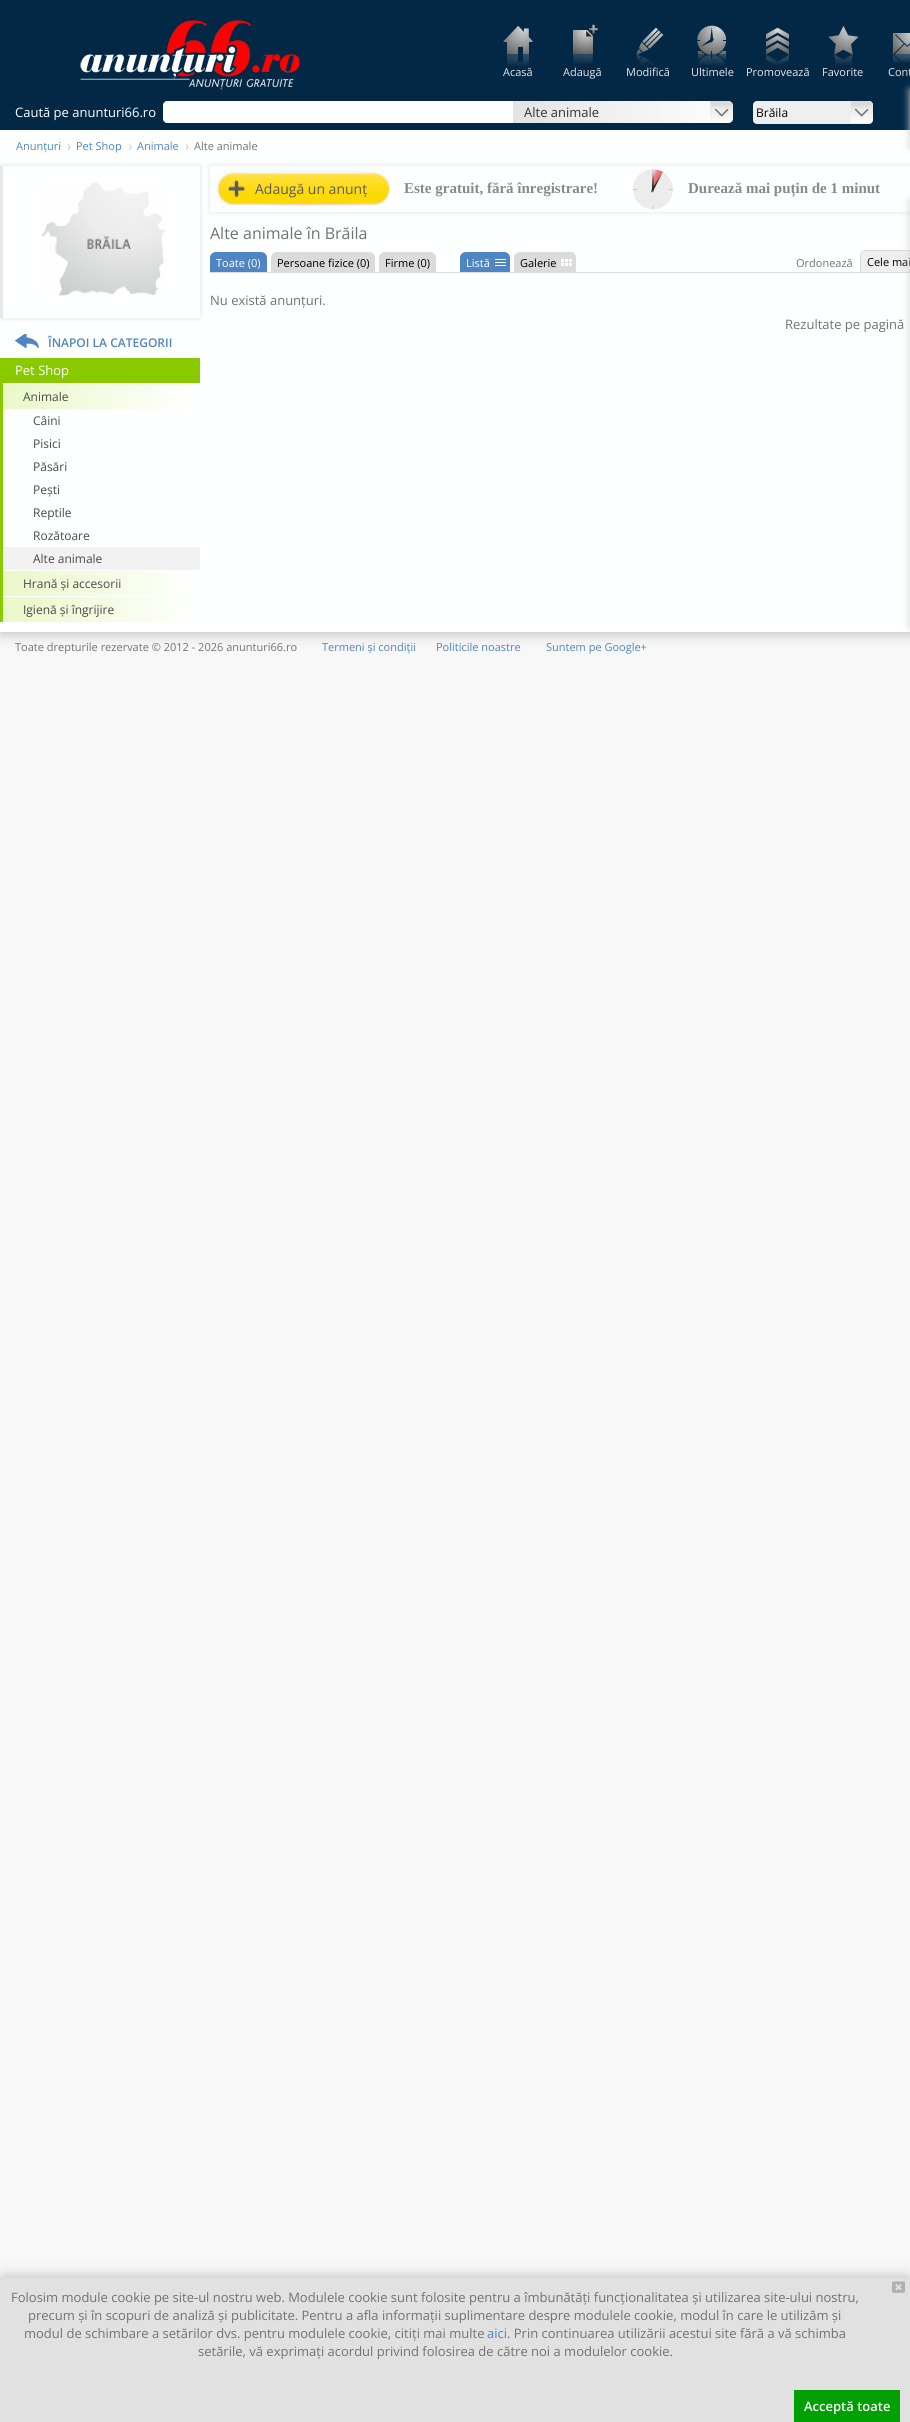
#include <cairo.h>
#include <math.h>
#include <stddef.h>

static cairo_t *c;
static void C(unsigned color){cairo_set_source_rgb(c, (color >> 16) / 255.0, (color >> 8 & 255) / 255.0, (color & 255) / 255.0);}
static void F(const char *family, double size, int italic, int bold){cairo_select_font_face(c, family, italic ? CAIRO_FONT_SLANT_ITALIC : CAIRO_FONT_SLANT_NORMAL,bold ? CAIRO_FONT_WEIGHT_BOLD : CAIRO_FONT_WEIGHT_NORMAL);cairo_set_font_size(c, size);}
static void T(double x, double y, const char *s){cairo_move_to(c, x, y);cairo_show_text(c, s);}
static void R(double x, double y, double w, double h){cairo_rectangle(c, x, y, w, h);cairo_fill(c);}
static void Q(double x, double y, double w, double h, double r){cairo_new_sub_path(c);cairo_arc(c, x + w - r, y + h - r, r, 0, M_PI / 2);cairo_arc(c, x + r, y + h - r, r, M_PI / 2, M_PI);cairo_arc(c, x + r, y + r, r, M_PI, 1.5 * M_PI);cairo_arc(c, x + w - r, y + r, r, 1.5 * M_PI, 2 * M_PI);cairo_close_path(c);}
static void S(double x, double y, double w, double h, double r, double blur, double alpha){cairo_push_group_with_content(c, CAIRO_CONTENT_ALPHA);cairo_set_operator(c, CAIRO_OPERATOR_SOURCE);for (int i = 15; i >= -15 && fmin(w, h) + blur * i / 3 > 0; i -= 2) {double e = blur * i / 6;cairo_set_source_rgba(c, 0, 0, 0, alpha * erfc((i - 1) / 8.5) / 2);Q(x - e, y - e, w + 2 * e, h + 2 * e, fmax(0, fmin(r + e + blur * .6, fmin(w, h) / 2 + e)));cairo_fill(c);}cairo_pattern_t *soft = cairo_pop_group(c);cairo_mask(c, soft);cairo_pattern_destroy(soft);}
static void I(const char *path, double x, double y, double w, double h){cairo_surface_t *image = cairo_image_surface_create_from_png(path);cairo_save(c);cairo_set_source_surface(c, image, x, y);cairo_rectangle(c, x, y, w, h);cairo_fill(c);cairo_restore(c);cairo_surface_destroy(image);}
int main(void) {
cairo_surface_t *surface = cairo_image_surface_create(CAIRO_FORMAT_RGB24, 910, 2422);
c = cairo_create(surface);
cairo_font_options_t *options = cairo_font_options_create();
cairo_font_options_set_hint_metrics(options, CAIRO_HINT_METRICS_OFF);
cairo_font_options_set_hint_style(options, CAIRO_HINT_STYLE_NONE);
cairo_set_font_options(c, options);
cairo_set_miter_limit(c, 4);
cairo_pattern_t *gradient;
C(0xf8f8f8);
cairo_paint(c);
C(0xb0b0b0);
S(0,0,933,632,0,7.5,1);
C(0xfeffff);
R(0,130,910,502);
C(0x022846);
R(0,0,910,130);
I("1.png",80,20,220,70);
I("2.png",503,25,31,41);
F("Open Sans",11,0,0);
C(0xe6e7e8);
T(503,76,"Acasă");
I("3.png",573,24,25,40);
T(563,76,"Adaugă");
I("4.png",636,27,28,38);
T(626,76,"Modifică");
I("5.png",697,25,30,41);
T(691,76,"Ultimele");
I("6.png",766,27,23,38);
T(746,76,"Promovează");
I("7.png",828,26,31,39);
T(822,76,"Favorite");
I("8.png",892,33,18,30);
T(888,76,"Cont");
F("Open Sans",13,0,0);
C(0xffffff);
T(15,117,"Caută pe anunturi66.ro");
cairo_new_path(c);
cairo_move_to(c,167,101);
cairo_line_to(c,513,101);
cairo_line_to(c,513,123);
cairo_line_to(c,167,123);
cairo_curve_to(c,165,123,163,121,163,119);
cairo_line_to(c,163,105);
cairo_curve_to(c,163,103,165,101,167,101);
cairo_close_path(c);
cairo_fill(c);
cairo_new_path(c);
cairo_move_to(c,513,101);
cairo_line_to(c,728,101);
cairo_curve_to(c,731,101,733,103,733,106);
cairo_line_to(c,733,118);
cairo_curve_to(c,733,121,731,123,728,123);
cairo_line_to(c,513,123);
cairo_close_path(c);
cairo_fill(c);
I("9.png",513,101,220,22);
C(0x333333);
T(524,117,"Alte animale");
C(0xefefef);
Q(753,101,120,23,4);
cairo_fill(c);
F("Open Sans",12,0,0);
C(0x000000);
T(756,117,"Brăila");
C(0xffffff);
cairo_new_path(c);
cairo_move_to(c,851,101);
cairo_line_to(c,868,101);
cairo_curve_to(c,871,101,873,103,873,106);
cairo_line_to(c,873,118);
cairo_curve_to(c,873,121,871,123,868,123);
cairo_line_to(c,851,123);
cairo_close_path(c);
cairo_fill(c);
I("10.png",851,101,22,20);
F("Open Sans",11,0,0);
C(0x4f85c1);
T(16,150,"Anunțuri");
F("Open Sans",14,0,0);
C(0xc7c7c7);
T(67,151,"›");
F("Open Sans",11,0,0);
C(0x4f85c1);
T(76,150,"Pet Shop");
F("Open Sans",14,0,0);
C(0xc7c7c7);
T(128,151,"›");
F("Open Sans",11,0,0);
C(0x4f85c1);
T(137,150,"Animale");
F("Open Sans",14,0,0);
C(0xc7c7c7);
T(185,151,"›");
F("Open Sans",11,0,0);
C(0x727271);
T(194,150,"Alte animale");
cairo_save(c);
cairo_set_fill_rule(c,CAIRO_FILL_RULE_EVEN_ODD);
cairo_new_path(c);
cairo_move_to(c,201,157);
cairo_line_to(c,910,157);
cairo_line_to(c,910,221);
cairo_line_to(c,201,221);
cairo_close_path(c);
cairo_move_to(c,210,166);
cairo_line_to(c,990,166);
cairo_line_to(c,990,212);
cairo_line_to(c,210,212);
cairo_close_path(c);
cairo_clip(c);
C(0xdfdfdf);
S(210,166,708,46,0,2.5,1);
cairo_restore(c);
I("11.png",216,170,174,36);
F("Open Sans",14,0,0);
C(0x5b5b5a);
T(255,194,"Adaugă un anunț");
F("Liberation Serif",15,0,1);
C(0x898989);
T(404,193,"Este gratuit, fără înregistrare!");
I("12.png",632,169,41,41);
T(688,193,"Durează mai puțin de 1 minut");
F("Open Sans",16,0,0);
C(0x727271);
T(210,239,"Alte animale în Brăila");
C(0xdbdbdb);
R(210,272,650,1);
C(0x4f85c2);
cairo_new_path(c);
cairo_move_to(c,216,252);
cairo_line_to(c,261,252);
cairo_curve_to(c,264.5,252,267,254.5,267,258);
cairo_line_to(c,267,272);
cairo_line_to(c,210,272);
cairo_line_to(c,210,258);
cairo_curve_to(c,210,254.5,212.5,252,216,252);
cairo_close_path(c);
cairo_fill(c);
F("Open Sans",11,0,0);
C(0xffffff);
T(216,267,"Toate (0)");
C(0xdbdbdb);
cairo_new_path(c);
cairo_move_to(c,277,252);
cairo_line_to(c,369,252);
cairo_curve_to(c,372.5,252,375,254.5,375,258);
cairo_line_to(c,375,272);
cairo_line_to(c,271,272);
cairo_line_to(c,271,258);
cairo_curve_to(c,271,254.5,273.5,252,277,252);
cairo_close_path(c);
cairo_fill(c);
C(0x000000);
T(277,267,"Persoane fizice (0)");
C(0xdbdbdb);
cairo_new_path(c);
cairo_move_to(c,385,252);
cairo_line_to(c,430,252);
cairo_curve_to(c,433.5,252,436,254.5,436,258);
cairo_line_to(c,436,272);
cairo_line_to(c,379,272);
cairo_line_to(c,379,258);
cairo_curve_to(c,379,254.5,381.5,252,385,252);
cairo_close_path(c);
cairo_fill(c);
C(0x000000);
T(385,267,"Firme (0)");
C(0x4f85c2);
cairo_new_path(c);
cairo_move_to(c,466,252);
cairo_line_to(c,504,252);
cairo_curve_to(c,507.5,252,510,254.5,510,258);
cairo_line_to(c,510,272);
cairo_line_to(c,460,272);
cairo_line_to(c,460,258);
cairo_curve_to(c,460,254.5,462.5,252,466,252);
cairo_close_path(c);
cairo_fill(c);
I("13.png",495,259,11,7);
C(0xffffff);
T(466,267,"Listă");
C(0xdbdbdb);
cairo_new_path(c);
cairo_move_to(c,520,252);
cairo_line_to(c,570,252);
cairo_curve_to(c,573.5,252,576,254.5,576,258);
cairo_line_to(c,576,272);
cairo_line_to(c,514,272);
cairo_line_to(c,514,258);
cairo_curve_to(c,514,254.5,516.5,252,520,252);
cairo_close_path(c);
cairo_fill(c);
I("14.png",561,259,11,7);
C(0x000000);
T(520,267,"Galerie");
C(0x727271);
T(796,267,"Ordonează");
C(0xefefef);
cairo_new_path(c);
cairo_move_to(c,866,250.5);
cairo_line_to(c,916.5,250.5);
cairo_line_to(c,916.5,272.5);
cairo_line_to(c,860.5,272.5);
cairo_line_to(c,860.5,256);
cairo_curve_to(c,860.5,253,863,250.5,866,250.5);
cairo_close_path(c);
cairo_fill_preserve(c);
C(0xd9dada);
cairo_set_line_width(c,1);
cairo_stroke(c);
C(0x000000);
T(867,266,"Cele mai");
F("Open Sans",13,0,0);
C(0x727271);
T(210,305,"Nu există anunțuri.");
T(785,329,"Rezultate pe pagină");
cairo_save(c);
cairo_set_fill_rule(c,CAIRO_FILL_RULE_EVEN_ODD);
cairo_new_path(c);
cairo_move_to(c,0,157);
cairo_line_to(c,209,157);
cairo_line_to(c,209,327);
cairo_line_to(c,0,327);
cairo_close_path(c);
cairo_move_to(c,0,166);
cairo_line_to(c,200,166);
cairo_line_to(c,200,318);
cairo_line_to(c,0,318);
cairo_close_path(c);
cairo_clip(c);
C(0xdfdfdf);
S(0,166,200,152,0,2.5,1);
cairo_restore(c);
C(0xe8e8e8);
R(0,166,3,152);
I("15.png",42,182,124,114);
I("16.png",15,334,24,14);
F("Open Sans SemiBold",12,0,0);
C(0x4f85c1);
T(48,347,"ÎNAPOI LA CATEGORII");
C(0x89c900);
R(0,358,3,264);
R(3,358,197,25);
F("Open Sans",13,0,0);
C(0xffffff);
T(15,375,"Pet Shop");
gradient = cairo_pattern_create_linear(3,397,200,397);
cairo_pattern_add_color_stop_rgba(gradient,0,0.914,0.973,0.784,1);
cairo_pattern_add_color_stop_rgba(gradient,1,1,1,1,1);
cairo_set_source(c,gradient);
cairo_pattern_destroy(gradient);
R(3,384,188,25);
F("Open Sans",12,0,0);
C(0x494949);
T(23,401,"Animale");
T(33,425,"Câini");
T(33,448,"Pisici");
T(33,471,"Păsări");
T(33,494,"Pești");
T(33,517,"Reptile");
T(33,540,"Rozătoare");
C(0xf2f2f2);
R(3,547,197,23);
C(0x494949);
T(33,563,"Alte animale");
gradient = cairo_pattern_create_linear(3,584,200,584);
cairo_pattern_add_color_stop_rgba(gradient,0,0.914,0.973,0.784,1);
cairo_pattern_add_color_stop_rgba(gradient,1,1,1,1,1);
cairo_set_source(c,gradient);
cairo_pattern_destroy(gradient);
R(3,571,188,25);
C(0x494949);
T(23,588,"Hrană și accesorii");
gradient = cairo_pattern_create_linear(3,610,200,610);
cairo_pattern_add_color_stop_rgba(gradient,0,0.914,0.973,0.784,1);
cairo_pattern_add_color_stop_rgba(gradient,1,1,1,1,1);
cairo_set_source(c,gradient);
cairo_pattern_destroy(gradient);
R(3,597,188,25);
C(0x494949);
T(23,614,"Igienă și îngrijire");
C(0xd0d0d0);
S(910,90,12,58,0,4,1);
S(910,200,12,426,0,4,1);
F("Open Sans",11,0,0);
C(0x727271);
T(15,651,"Toate drepturile rezervate © 2012 - 2026 anunturi66.ro");
C(0x4f85c1);
T(322,651,"Termeni și condiții");
T(436,651,"Politicile noastre");
T(546,651,"Suntem pe Google+");
C(0xb0b0b0);
S(0,2278,910,144,5,7.5,1);
C(0xe1e1e2);
cairo_new_path(c);
cairo_move_to(c,5,2278);
cairo_line_to(c,905,2278);
cairo_curve_to(c,908,2278,910,2280,910,2283);
cairo_line_to(c,910,2422);
cairo_line_to(c,0,2422);
cairo_line_to(c,0,2283);
cairo_curve_to(c,0,2280,2,2278,5,2278);
cairo_close_path(c);
cairo_fill(c);
I("17.png",892,2281,13,12);
F("Open Sans",13,0,0);
C(0x727271);
T(11,2302,"Folosim module cookie pe site-ul nostru web. Modulele cookie sunt folosite pentru a îmbunătăți funcționalitatea și utilizarea site-ului nostru,");
T(28,2320,"precum și în scopuri de analiză și publicitate. Pentru a afla informații suplimentare despre modulele cookie, modul în care le utilizăm și");
T(24,2338,"modul de schimbare a setărilor dvs. pentru modulele cookie, citiți mai multe");
C(0x4f85c1);
T(487,2338,"aici");
C(0x727271);
T(507,2338,". Prin continuarea utilizării acestui site fără a vă schimba");
T(198,2356,"setările, vă exprimați acordul privind folosirea de către noi a modulelor cookie.");
C(0x00a002);
R(794,2390,106,32);
F("Open Sans SemiBold",13,0,0);
C(0xffffff);
T(804,2411,"Acceptă toate");
cairo_surface_write_to_png(surface, "o.png");
cairo_font_options_destroy(options);
cairo_destroy(c);
cairo_surface_destroy(surface);
return 0;
}
